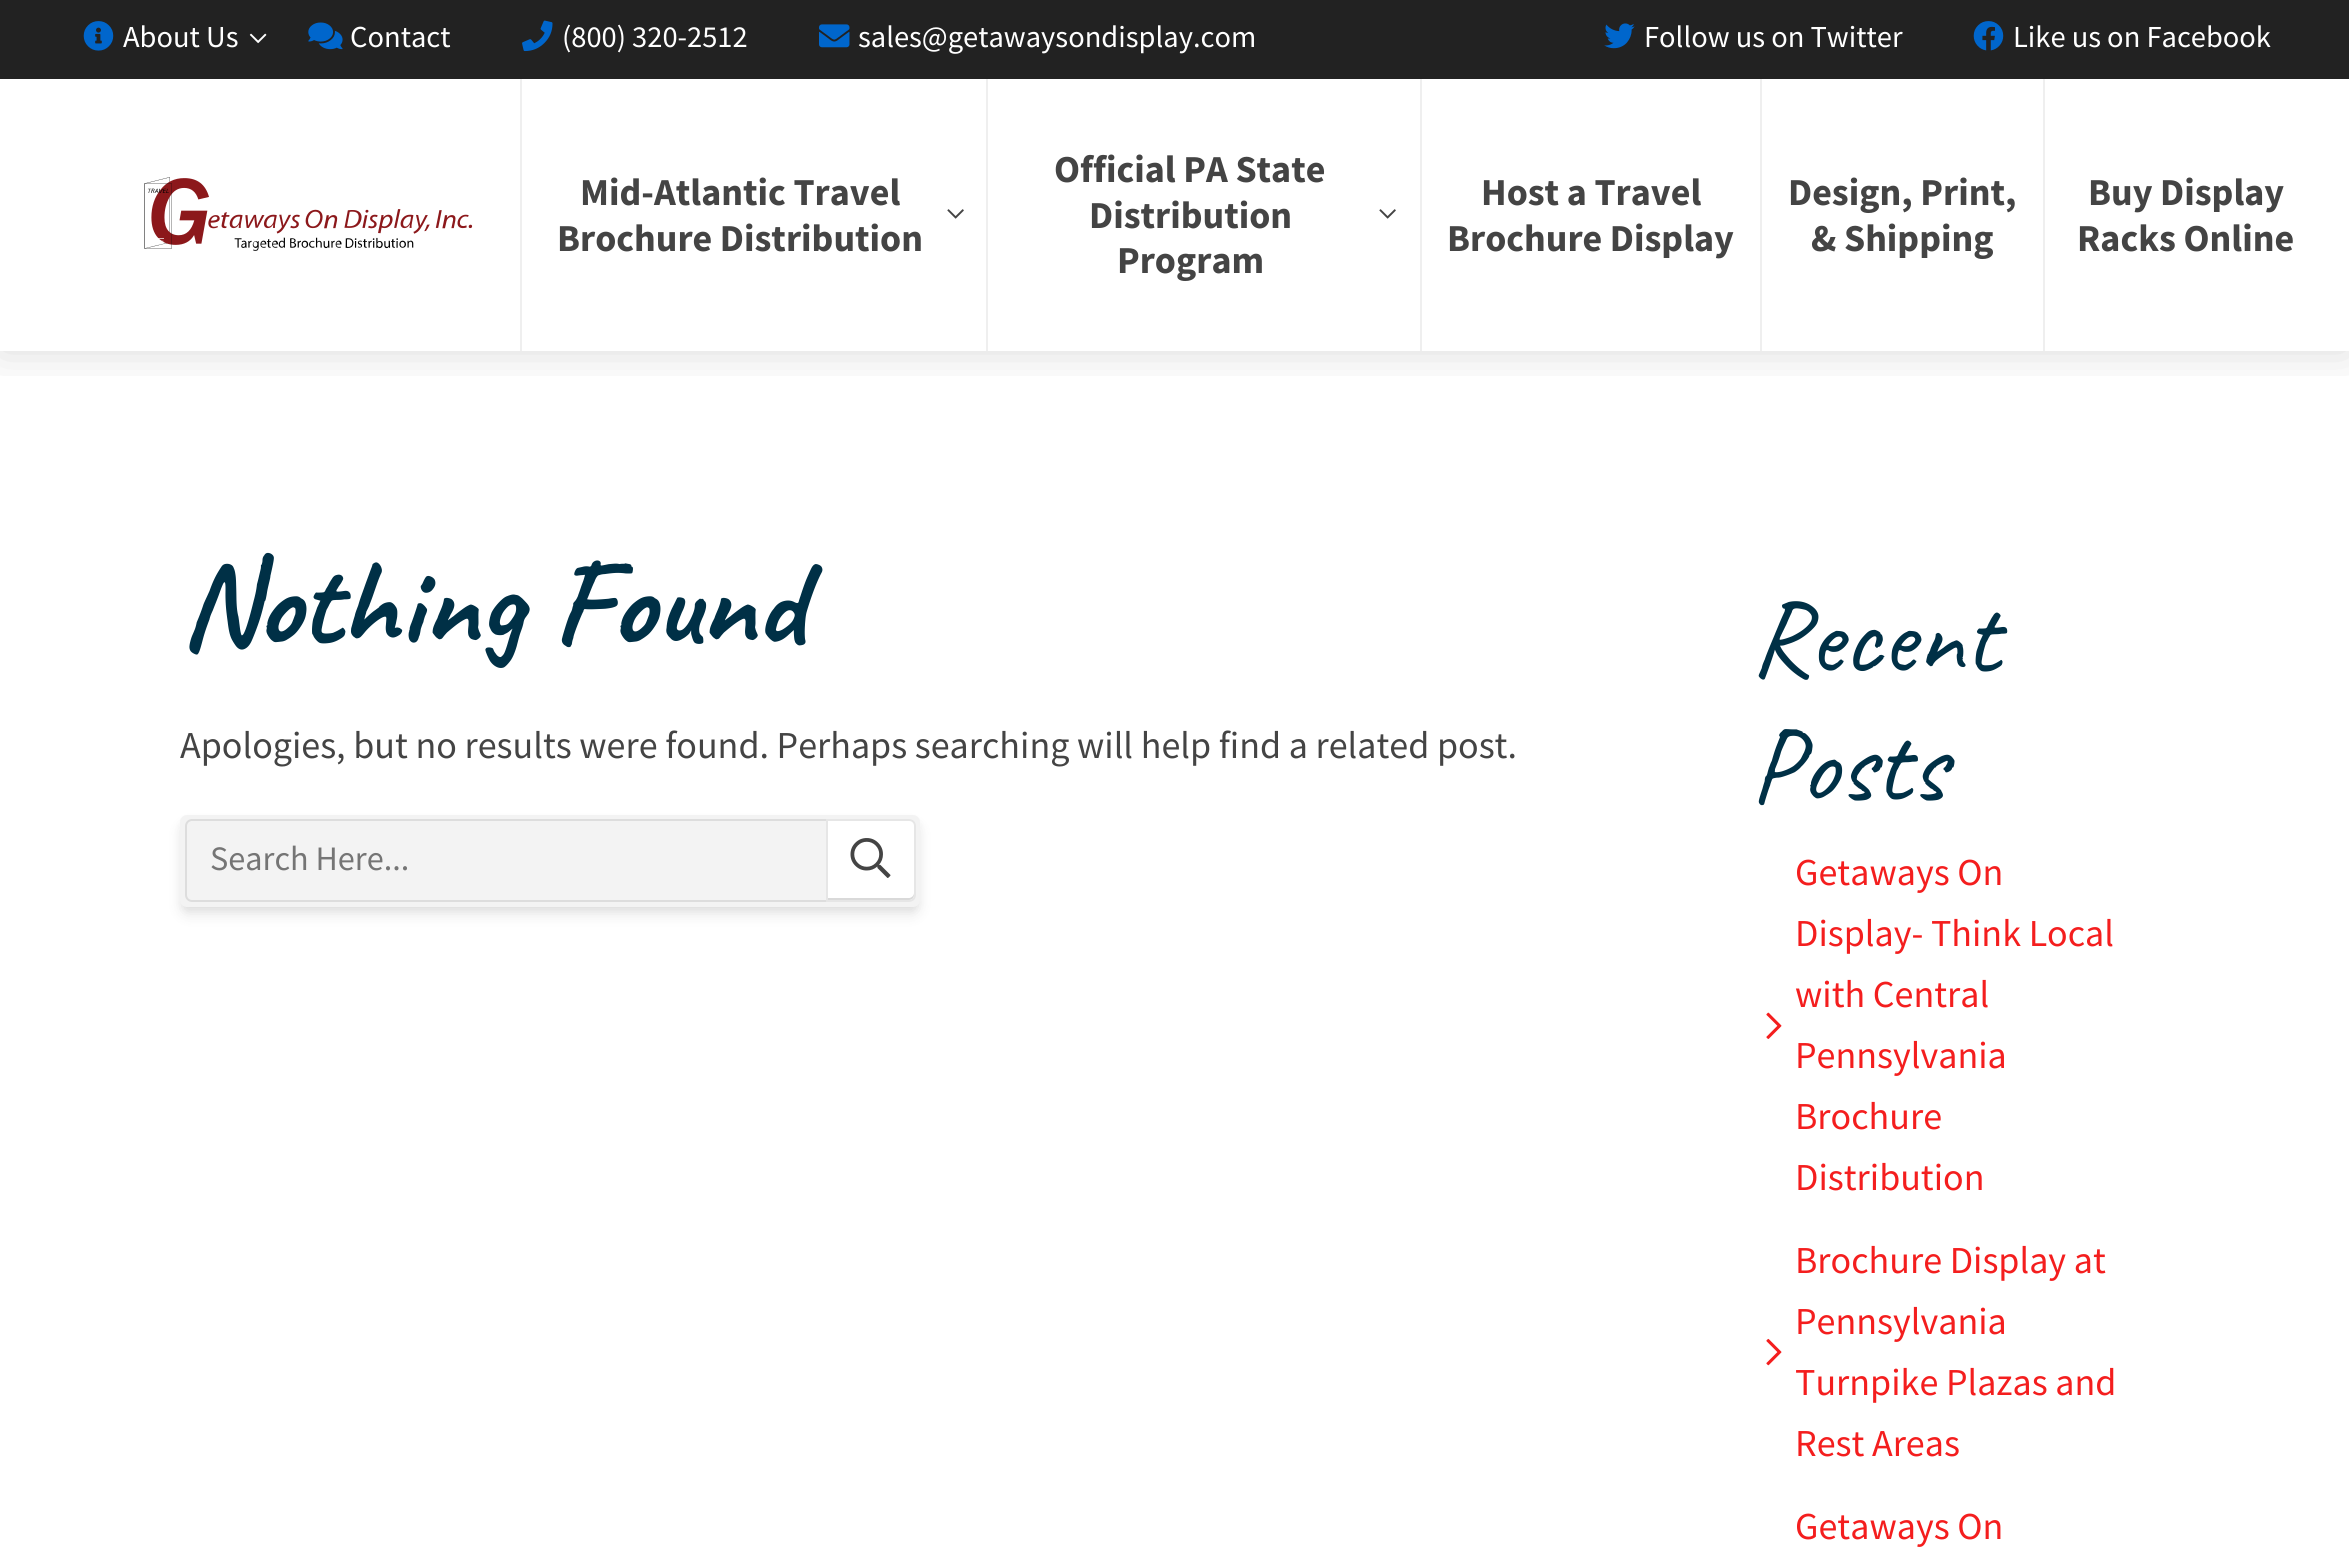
#include <cairo.h>
#include <math.h>
#include <stddef.h>

static cairo_t *c;
static void C(unsigned color){cairo_set_source_rgb(c, (color >> 16) / 255.0, (color >> 8 & 255) / 255.0, (color & 255) / 255.0);}
static void F(const char *family, double size, int italic, int bold){cairo_select_font_face(c, family, italic ? CAIRO_FONT_SLANT_ITALIC : CAIRO_FONT_SLANT_NORMAL,bold ? CAIRO_FONT_WEIGHT_BOLD : CAIRO_FONT_WEIGHT_NORMAL);cairo_set_font_size(c, size);}
static void T(double x, double y, const char *s){cairo_move_to(c, x, y);cairo_show_text(c, s);}
static void L(double x, double y, const char *s, double letter, double word){cairo_move_to(c, x, y);while (*s) {char ch[5] = {0};int n = 0;do ch[n++] = *s++; while ((*s & 0xC0) == 0x80);cairo_show_text(c, ch);cairo_rel_move_to(c, letter + word * (*ch == ' '), 0);}}
static void R(double x, double y, double w, double h){cairo_rectangle(c, x, y, w, h);cairo_fill(c);}
static void Q(double x, double y, double w, double h, double r){cairo_new_sub_path(c);cairo_arc(c, x + w - r, y + h - r, r, 0, M_PI / 2);cairo_arc(c, x + r, y + h - r, r, M_PI / 2, M_PI);cairo_arc(c, x + r, y + r, r, M_PI, 1.5 * M_PI);cairo_arc(c, x + w - r, y + r, r, 1.5 * M_PI, 2 * M_PI);cairo_close_path(c);}
static void S(double x, double y, double w, double h, double r, double blur, double alpha){cairo_push_group_with_content(c, CAIRO_CONTENT_ALPHA);cairo_set_operator(c, CAIRO_OPERATOR_SOURCE);for (int i = 15; i >= -15 && fmin(w, h) + blur * i / 3 > 0; i -= 2) {double e = blur * i / 6;cairo_set_source_rgba(c, 0, 0, 0, alpha * erfc((i - 1) / 8.5) / 2);Q(x - e, y - e, w + 2 * e, h + 2 * e, fmax(0, fmin(r + e + blur * .6, fmin(w, h) / 2 + e)));cairo_fill(c);}cairo_pattern_t *soft = cairo_pop_group(c);cairo_mask(c, soft);cairo_pattern_destroy(soft);}
static void I(const char *path, double x, double y, double w, double h){cairo_surface_t *image = cairo_image_surface_create_from_png(path);cairo_save(c);cairo_set_source_surface(c, image, x, y);cairo_rectangle(c, x, y, w, h);cairo_fill(c);cairo_restore(c);cairo_surface_destroy(image);}
int main(void) {
cairo_surface_t *surface = cairo_image_surface_create(CAIRO_FORMAT_RGB24, 2349, 1550);
c = cairo_create(surface);
cairo_font_options_t *options = cairo_font_options_create();
cairo_font_options_set_hint_metrics(options, CAIRO_HINT_METRICS_OFF);
cairo_font_options_set_hint_style(options, CAIRO_HINT_STYLE_NONE);
cairo_set_font_options(c, options);
cairo_set_miter_limit(c, 4);
C(0xffffff);
cairo_paint(c);
cairo_save(c);
cairo_rectangle(c,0,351,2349,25);
cairo_clip(c);
C(0x000000);
S(0,79,2349,272,0,22.5,.15);
cairo_restore(c);
C(0x222222);
R(0,0,2349,79);
I("1.png",83,21,31,30);
F("Source Sans Pro",30.5,0,0);
C(0xffffff);
T(123,47,"About Us");
I("2.png",249,33,18,11);
I("3.png",308,22,35,28);
T(350,47,"Contact");
I("4.png",522,20,31,32);
T(562,47,"(800) 320-2512");
I("5.png",819,24,31,24);
T(858,47,"sales@getawaysondisplay.com");
I("6.png",1604,23,31,26);
T(1644,47,"Follow us on Twitter");
I("7.png",1973,21,31,30);
T(2013,47,"Like us on Facebook");
I("8.png",144,177,329,74);
C(0xefefef);
R(520,79,2,272);
F("Source Sans Pro",38.05,0,1);
C(0x444444);
T(580,205,"Mid-Atlantic Travel");
I("9.png",947,209,17,10);
T(557,251,"Brochure Distribution");
C(0xefefef);
R(986,79,2,272);
C(0x444444);
T(1054,182,"Official PA State");
T(1089,228,"Distribution");
I("9.png",1379,209,17,10);
T(1117,273,"Program");
C(0xefefef);
R(1420,79,2,272);
C(0x444444);
T(1481,205,"Host a Travel");
T(1447,251,"Brochure Display");
C(0xefefef);
R(1760,79,2,272);
C(0x444444);
T(1788,205,"Design, Print,");
T(1811,251,"& Shipping");
C(0xefefef);
R(2043,79,2,272);
C(0x444444);
T(2088,205,"Buy Display");
T(2077,251,"Racks Online");
F("Caveat",122,0,1);
C(0x003046);
L(180,643,"Nothing Found",0,1);
F("Source Sans Pro",38.05,0,0);
C(0x444444);
T(180,758,"Apologies, but no results were found. Perhaps searching will help find a related post.");
C(0x000000);
S(182,821,736,88,5,4.5,.06);
S(182,826,736,88,5,7,.1);
C(0xf3f3f3);
Q(180,815,740,92,7);
cairo_fill(c);
Q(186,820,729,81,6);
C(0xdddddd);
cairo_stroke(c);
F("Source Sans Pro",34.25,0,0);
C(0x757575);
T(210,870,"Search Here...");
C(0xffffff);
cairo_new_path(c);
cairo_move_to(c,826,819);
cairo_line_to(c,909,819);
cairo_curve_to(c,913,819,916,822,916,826);
cairo_line_to(c,916,895);
cairo_curve_to(c,916,899,913,902,909,902);
cairo_line_to(c,826,902);
cairo_close_path(c);
cairo_fill(c);
C(0xd9d9d9);
cairo_new_path(c);
cairo_move_to(c,828,898);
cairo_line_to(c,828,900);
cairo_line_to(c,909,900);
cairo_curve_to(c,912,900,914,898,914,895);
cairo_line_to(c,914,893);
cairo_curve_to(c,914,896,911,898,909,898);
cairo_close_path(c);
cairo_fill(c);
cairo_new_path(c);
cairo_move_to(c,827,820);
cairo_line_to(c,909,820);
cairo_curve_to(c,912.5,820,915,822.5,915,826);
cairo_line_to(c,915,895);
cairo_curve_to(c,915,898.5,912.5,901,909,901);
cairo_line_to(c,827,901);
cairo_close_path(c);
C(0xe6e6e6);
cairo_stroke(c);
I("10.png",850,838,41,40);
F("Caveat",107,0,0);
C(0x003046);
T(1750,672,"Recent");
T(1750,800,"Posts");
F("Source Sans Pro",38.05,0,0);
C(0xf41e1e);
T(1795,885,"Getaways On");
T(1795,946,"Display- Think Local");
T(1795,1007,"with Central");
I("11.png",1766,1012,16,27);
T(1795,1068,"Pennsylvania");
T(1795,1129,"Brochure");
T(1795,1190,"Distribution");
T(1795,1273,"Brochure Display at");
T(1795,1334,"Pennsylvania");
I("12.png",1766,1338,16,28);
T(1795,1395,"Turnpike Plazas and");
T(1795,1456,"Rest Areas");
T(1795,1539,"Getaways On");
cairo_surface_write_to_png(surface, "o.png");
cairo_font_options_destroy(options);
cairo_destroy(c);
cairo_surface_destroy(surface);
return 0;
}
